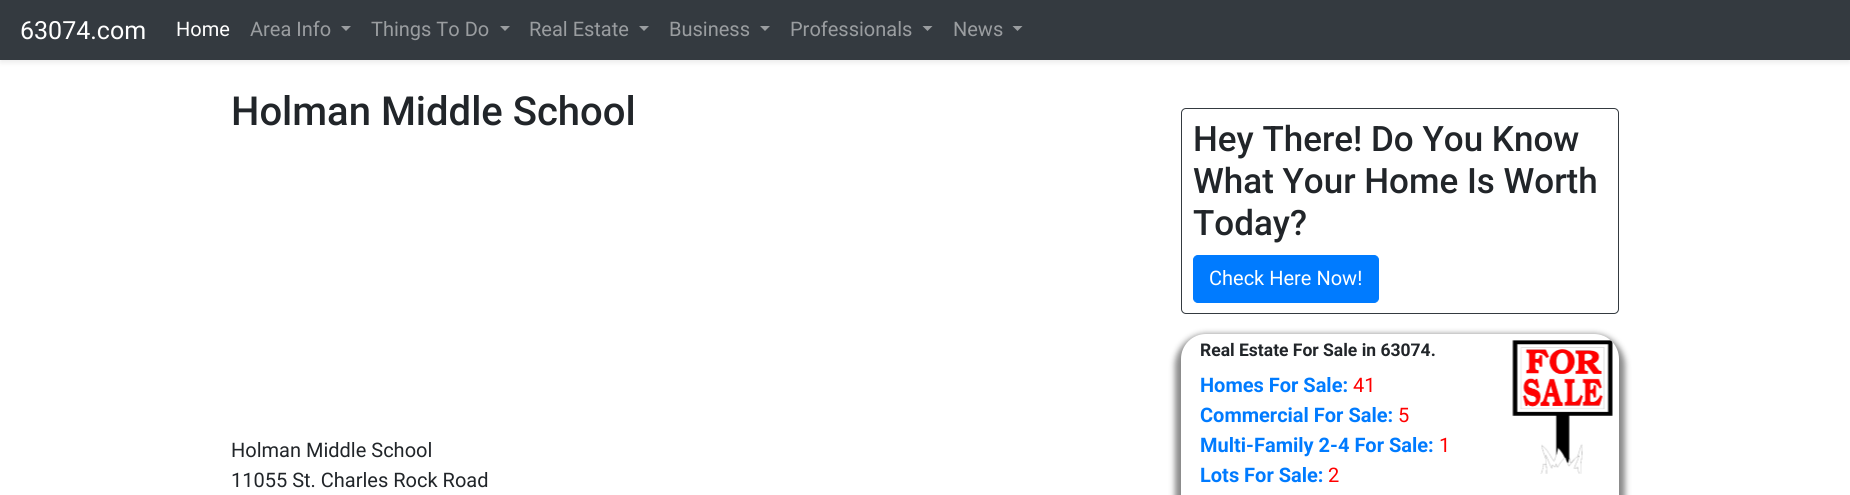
#include <cairo.h>
#include <math.h>
#include <stddef.h>

static cairo_t *c;
static void C(unsigned color){cairo_set_source_rgb(c, (color >> 16) / 255.0, (color >> 8 & 255) / 255.0, (color & 255) / 255.0);}
static void F(const char *family, double size, int italic, int bold){cairo_select_font_face(c, family, italic ? CAIRO_FONT_SLANT_ITALIC : CAIRO_FONT_SLANT_NORMAL,bold ? CAIRO_FONT_WEIGHT_BOLD : CAIRO_FONT_WEIGHT_NORMAL);cairo_set_font_size(c, size);}
static void T(double x, double y, const char *s){cairo_move_to(c, x, y);cairo_show_text(c, s);}
static void R(double x, double y, double w, double h){cairo_rectangle(c, x, y, w, h);cairo_fill(c);}
static void Q(double x, double y, double w, double h, double r){cairo_new_sub_path(c);cairo_arc(c, x + w - r, y + h - r, r, 0, M_PI / 2);cairo_arc(c, x + r, y + h - r, r, M_PI / 2, M_PI);cairo_arc(c, x + r, y + r, r, M_PI, 1.5 * M_PI);cairo_arc(c, x + w - r, y + r, r, 1.5 * M_PI, 2 * M_PI);cairo_close_path(c);}
static void S(double x, double y, double w, double h, double r, double blur, double alpha){cairo_push_group_with_content(c, CAIRO_CONTENT_ALPHA);cairo_set_operator(c, CAIRO_OPERATOR_SOURCE);for (int i = 15; i >= -15 && fmin(w, h) + blur * i / 3 > 0; i -= 2) {double e = blur * i / 6;cairo_set_source_rgba(c, 0, 0, 0, alpha * erfc((i - 1) / 8.5) / 2);Q(x - e, y - e, w + 2 * e, h + 2 * e, fmax(0, fmin(r + e + blur * .6, fmin(w, h) / 2 + e)));cairo_fill(c);}cairo_pattern_t *soft = cairo_pop_group(c);cairo_mask(c, soft);cairo_pattern_destroy(soft);}
static void I(const char *path, double x, double y, double w, double h){cairo_surface_t *image = cairo_image_surface_create_from_png(path);cairo_save(c);cairo_set_source_surface(c, image, x, y);cairo_rectangle(c, x, y, w, h);cairo_fill(c);cairo_restore(c);cairo_surface_destroy(image);}
int main(void) {
cairo_surface_t *surface = cairo_image_surface_create(CAIRO_FORMAT_RGB24, 1850, 495);
c = cairo_create(surface);
cairo_font_options_t *options = cairo_font_options_create();
cairo_font_options_set_hint_metrics(options, CAIRO_HINT_METRICS_OFF);
cairo_font_options_set_hint_style(options, CAIRO_HINT_STYLE_NONE);
cairo_set_font_options(c, options);
cairo_set_miter_limit(c, 4);
C(0xffffff);
cairo_paint(c);
C(0x000000);
S(0,3,1850,60,0,2.5,.07);
C(0x343a40);
R(0,0,1850,60);
F("Roboto",25,0,0);
C(0xffffff);
T(20,39,"63074.com");
F("Roboto",20,0,0);
T(176,36,"Home");
C(0x9a9da0);
T(250,36,"Area Info");
cairo_new_path(c);
cairo_move_to(c,341,26);
cairo_line_to(c,351,26);
cairo_line_to(c,346,31);
cairo_close_path(c);
cairo_fill(c);
T(371,36,"Things To Do");
cairo_new_path(c);
cairo_move_to(c,500,26);
cairo_line_to(c,510,26);
cairo_line_to(c,505,31);
cairo_close_path(c);
cairo_fill(c);
T(529,36,"Real Estate");
cairo_new_path(c);
cairo_move_to(c,639,26);
cairo_line_to(c,649,26);
cairo_line_to(c,644,31);
cairo_close_path(c);
cairo_fill(c);
T(669,36,"Business");
cairo_new_path(c);
cairo_move_to(c,760,26);
cairo_line_to(c,770,26);
cairo_line_to(c,765,31);
cairo_close_path(c);
cairo_fill(c);
T(790,36,"Professionals");
cairo_new_path(c);
cairo_move_to(c,922.5,26);
cairo_line_to(c,932.5,26);
cairo_line_to(c,927.5,31);
cairo_close_path(c);
cairo_fill(c);
T(953,36,"News");
cairo_new_path(c);
cairo_move_to(c,1012.5,26);
cairo_line_to(c,1022.5,26);
cairo_line_to(c,1017.5,31);
cairo_close_path(c);
cairo_fill(c);
F("Roboto Medium",40,0,0);
C(0x212529);
T(231,125,"Holman Middle School");
F("Roboto",20,0,0);
T(231,457,"Holman Middle School");
T(231,487,"11055 St. Charles Rock Road");
Q(1181.5,108.5,437,205,4.5);
C(0x343a40);
cairo_set_line_width(c,1);
cairo_stroke(c);
F("Roboto Medium",35,0,0);
C(0x212529);
T(1193,151,"Hey There! Do You Know");
T(1193,193,"What Your Home Is Worth");
T(1193,235,"Today?");
C(0x007bff);
Q(1193.5,255.5,185,47,4.5);
cairo_fill_preserve(c);
cairo_stroke(c);
F("Roboto",20,0,0);
C(0xffffff);
T(1209,285,"Check Here Now!");
C(0x888888);
S(1175,334,450,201,31,3,1);
C(0xffffff);
Q(1181,334,438,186,25);
cairo_fill(c);
F("Roboto",17.5,0,1);
C(0x212529);
T(1200,356,"Real Estate For Sale in 63074.");
F("Roboto",20,0,1);
C(0x007bff);
T(1200,392,"Homes For Sale:");
F("Roboto",20,0,0);
C(0xff0000);
T(1353,392,"41");
F("Roboto",20,0,1);
C(0x007bff);
T(1200,422,"Commercial For Sale:");
F("Roboto",20,0,0);
C(0xff0000);
T(1398,422,"5");
F("Roboto",20,0,1);
C(0x007bff);
T(1200,452,"Multi-Family 2-4 For Sale:");
F("Roboto",20,0,0);
C(0xff0000);
T(1439,452,"1");
F("Roboto",20,0,1);
C(0x007bff);
T(1200,482,"Lots For Sale:");
F("Roboto",20,0,0);
C(0xff0000);
T(1328,482,"2");
I("1.png",1512,340,101,134);
cairo_surface_write_to_png(surface, "o.png");
cairo_font_options_destroy(options);
cairo_destroy(c);
cairo_surface_destroy(surface);
return 0;
}
